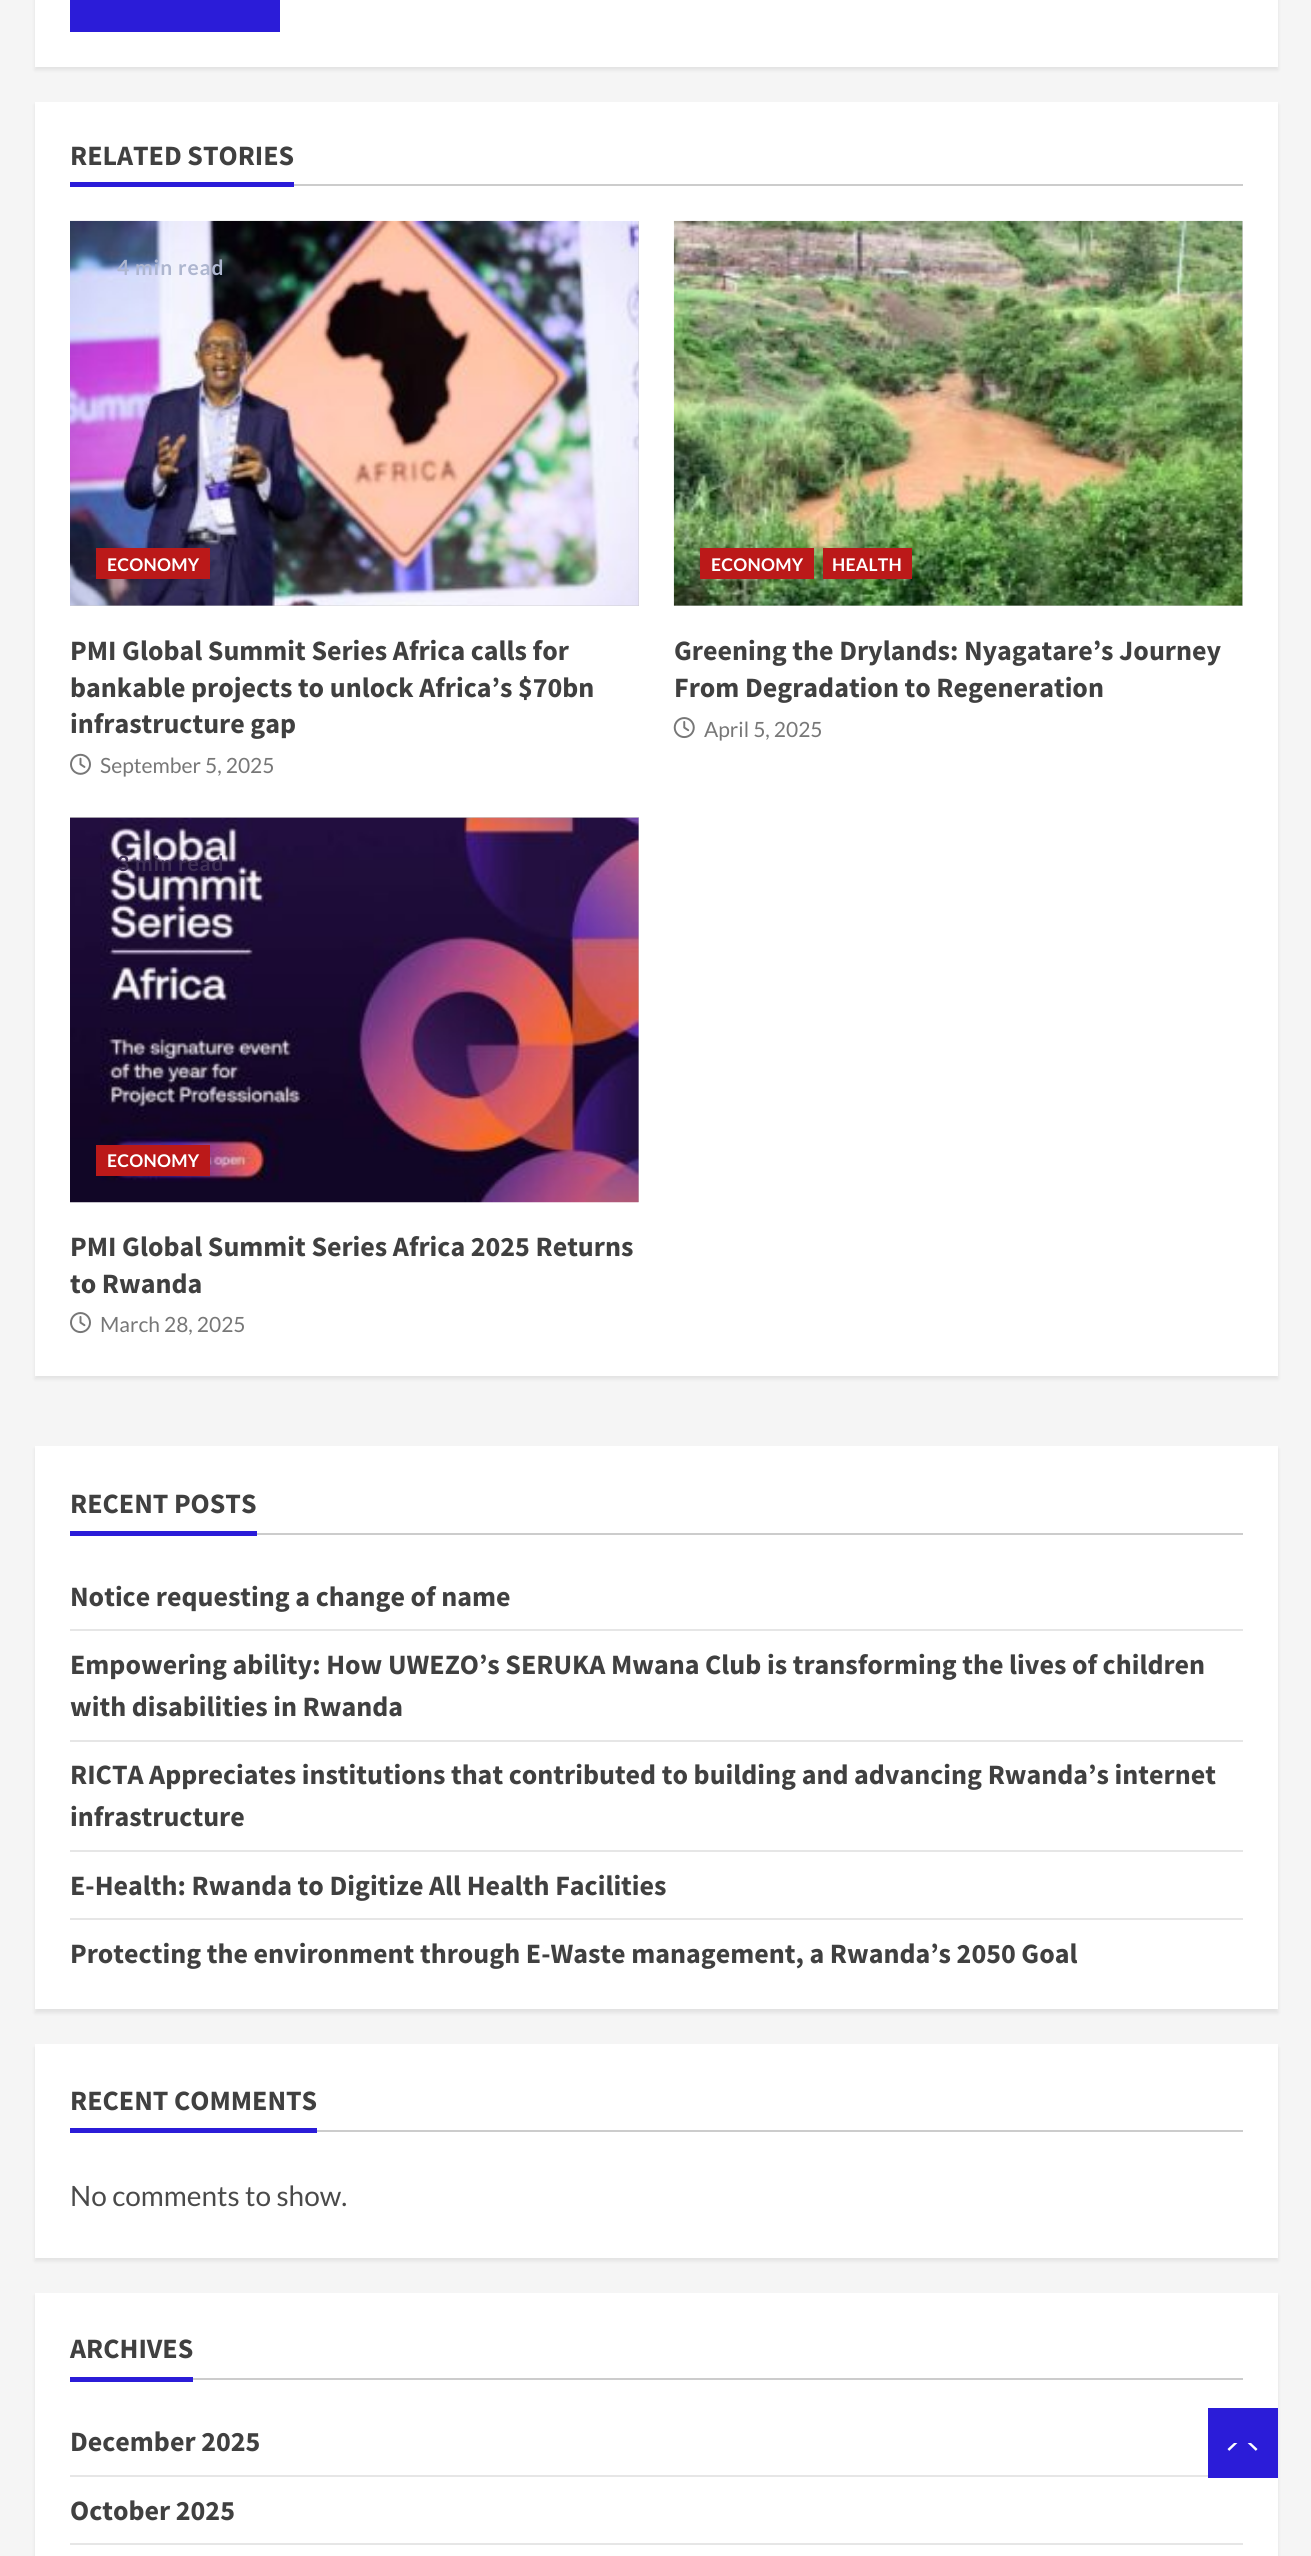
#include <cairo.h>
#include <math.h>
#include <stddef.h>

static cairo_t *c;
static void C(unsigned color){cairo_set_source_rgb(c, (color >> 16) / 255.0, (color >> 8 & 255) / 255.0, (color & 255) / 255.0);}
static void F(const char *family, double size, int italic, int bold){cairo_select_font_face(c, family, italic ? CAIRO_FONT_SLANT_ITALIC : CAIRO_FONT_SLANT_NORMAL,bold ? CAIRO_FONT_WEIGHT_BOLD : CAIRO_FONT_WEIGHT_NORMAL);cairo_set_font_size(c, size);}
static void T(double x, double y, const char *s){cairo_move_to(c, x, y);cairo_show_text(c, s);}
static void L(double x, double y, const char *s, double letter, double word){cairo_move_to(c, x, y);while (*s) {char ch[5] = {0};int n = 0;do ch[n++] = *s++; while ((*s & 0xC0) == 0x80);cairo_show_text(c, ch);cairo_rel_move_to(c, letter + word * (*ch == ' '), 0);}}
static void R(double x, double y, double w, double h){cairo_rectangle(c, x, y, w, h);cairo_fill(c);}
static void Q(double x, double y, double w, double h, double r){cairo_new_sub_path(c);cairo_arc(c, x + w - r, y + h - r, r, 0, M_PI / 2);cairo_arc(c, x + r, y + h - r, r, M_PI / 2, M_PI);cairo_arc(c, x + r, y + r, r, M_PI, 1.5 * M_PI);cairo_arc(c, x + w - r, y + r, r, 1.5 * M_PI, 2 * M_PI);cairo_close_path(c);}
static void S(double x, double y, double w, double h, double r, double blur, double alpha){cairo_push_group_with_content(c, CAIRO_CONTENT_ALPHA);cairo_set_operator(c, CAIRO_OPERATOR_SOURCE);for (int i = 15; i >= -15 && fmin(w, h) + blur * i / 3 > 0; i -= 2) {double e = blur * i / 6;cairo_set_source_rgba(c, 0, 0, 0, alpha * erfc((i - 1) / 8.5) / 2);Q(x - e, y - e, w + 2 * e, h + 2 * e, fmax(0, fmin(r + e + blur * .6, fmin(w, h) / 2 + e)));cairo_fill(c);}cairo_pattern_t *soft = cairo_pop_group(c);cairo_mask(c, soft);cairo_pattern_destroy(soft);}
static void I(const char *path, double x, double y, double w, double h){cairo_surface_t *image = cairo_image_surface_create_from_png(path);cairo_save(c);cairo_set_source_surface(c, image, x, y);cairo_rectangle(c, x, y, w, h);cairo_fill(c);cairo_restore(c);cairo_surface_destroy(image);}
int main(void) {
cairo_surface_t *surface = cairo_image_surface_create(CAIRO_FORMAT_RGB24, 1311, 2556);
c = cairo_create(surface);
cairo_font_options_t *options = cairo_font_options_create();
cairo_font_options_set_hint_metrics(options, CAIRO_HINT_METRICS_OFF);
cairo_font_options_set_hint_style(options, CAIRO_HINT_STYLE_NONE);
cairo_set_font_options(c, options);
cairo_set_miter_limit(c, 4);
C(0xf5f5f5);
cairo_paint(c);
C(0x000000);
S(35,-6,1243,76,0,2,.08);
C(0xffffff);
R(35,0,1243,67);
C(0x2b1cd8);
R(70,0,210,32);
C(0x000000);
S(35,105,1243,1274,0,2,.08);
C(0xffffff);
R(35,102,1243,1274);
C(0xcccccc);
R(294,184,949,2);
F("Source Sans Pro",28,0,1);
C(0x404040);
T(70,165,"RELATED STORIES");
C(0x2b1cd8);
R(70,182,224,5);
C(0xcccccc);
R(70,221,569,385);
I("1.png",70,220,569,386);
F("Lato",21,0,1);
C(0xaeb6cf);
L(117,275,"4 min read",.9,0);
C(0xbb1919);
R(96,548,114,31);
F("Lato",17.5,0,1);
C(0xffffff);
L(107,571,"ECONOMY",.25,0);
F("Source Sans Pro",28,0,1);
C(0x404040);
T(70,660,"PMI Global Summit Series Africa calls for");
T(70,697,"bankable projects to unlock Africa’s $70bn");
T(70,733,"infrastructure gap");
I("2.png",70,753,21,22);
F("Lato",21,0,0);
C(0x777777);
T(100,773,"September 5, 2025");
C(0xcccccc);
R(674,221,569,385);
I("3.png",673,220,570,386);
C(0xbb1919);
R(700,548,114,31);
F("Lato",17.5,0,1);
C(0xffffff);
L(711,571,"ECONOMY",.25,0);
C(0xbb1919);
R(823,548,89,31);
C(0xffffff);
L(832,571,"HEALTH",.25,0);
F("Source Sans Pro",28,0,1);
C(0x404040);
T(674,660,"Greening the Drylands: Nyagatare’s Journey");
T(674,697,"From Degradation to Regeneration");
I("4.png",673,717,22,22);
F("Lato",21,0,0);
C(0x777777);
T(704,737,"April 5, 2025");
C(0xcccccc);
R(70,817,569,385);
I("5.png",70,817,569,386);
F("Lato",21,0,1);
C(0x3f3055);
L(117,871,"3 min read",.9,0);
C(0xbb1919);
R(96,1145,114,31);
F("Lato",17.5,0,1);
C(0xffffff);
L(107,1167,"ECONOMY",.25,0);
F("Source Sans Pro",28,0,1);
C(0x404040);
T(70,1256,"PMI Global Summit Series Africa 2025 Returns");
T(70,1293,"to Rwanda");
I("6.png",70,1312,21,22);
F("Lato",21,0,0);
C(0x777777);
T(100,1332,"March 28, 2025");
C(0x000000);
S(35,1449,1243,564,0,2,.08);
C(0xffffff);
R(35,1446,1243,563);
F("Source Sans Pro",28,0,1);
C(0x404040);
T(70,1513,"RECENT POSTS");
C(0x2b1cd8);
R(70,1531,187,5);
C(0xcccccc);
R(257,1533,986,2);
C(0xe6e6e6);
R(70,1629,1173,2);
C(0x404040);
T(70,1606,"Notice requesting a change of name");
C(0xe6e6e6);
R(70,1740,1173,2);
C(0x404040);
T(70,1674,"Empowering ability: How UWEZO’s SERUKA Mwana Club is transforming the lives of children");
T(70,1716,"with disabilities in Rwanda");
C(0xe6e6e6);
R(70,1850,1173,2);
C(0x404040);
T(70,1784,"RICTA Appreciates institutions that contributed to building and advancing Rwanda’s internet");
T(70,1826,"infrastructure");
C(0xe6e6e6);
R(70,1918,1173,2);
C(0x404040);
T(70,1895,"E-Health: Rwanda to Digitize All Health Facilities");
T(70,1963,"Protecting the environment through E-Waste management, a Rwanda’s 2050 Goal");
C(0x000000);
S(35,2048,1243,213,0,2,.08);
C(0xffffff);
R(35,2044,1243,214);
C(0x404040);
T(70,2110,"RECENT COMMENTS");
C(0x2b1cd8);
R(70,2128,247,5);
C(0xcccccc);
R(317,2130,926,2);
F("Lato",28,0,0);
C(0x4a4a4a);
T(70,2206,"No comments to show.");
C(0x000000);
S(35,2296,1243,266,0,2,.08);
C(0xffffff);
R(35,2293,1243,263);
F("Source Sans Pro",28,0,1);
C(0x404040);
T(70,2358,"ARCHIVES");
C(0x2b1cd8);
R(70,2377,123,5);
C(0xcccccc);
R(193,2378,1050,2);
C(0xe6e6e6);
R(70,2475,1138,2);
C(0x404040);
T(70,2451,"December 2025");
C(0xe6e6e6);
R(70,2543,1173,2);
C(0x404040);
T(70,2520,"October 2025");
C(0x2b1cd8);
R(1208,2408,70,70);
C(0xffffff);
cairo_new_path(c);
cairo_move_to(c,1232,2452);
cairo_curve_to(c,1230,2451.5,1228.5,2450.5,1227.5,2449);
cairo_line_to(c,1234,2443);
cairo_line_to(c,1251,2443);
cairo_line_to(c,1257.5,2449);
cairo_curve_to(c,1256.5,2450.5,1255,2451.5,1253,2452);
cairo_close_path(c);
cairo_fill(c);
C(0x2b1cd8);
cairo_new_path(c);
cairo_move_to(c,1260,2455);
cairo_line_to(c,1225,2455);
cairo_line_to(c,1242.5,2438);
cairo_close_path(c);
cairo_fill(c);
cairo_surface_write_to_png(surface, "o.png");
cairo_font_options_destroy(options);
cairo_destroy(c);
cairo_surface_destroy(surface);
return 0;
}
